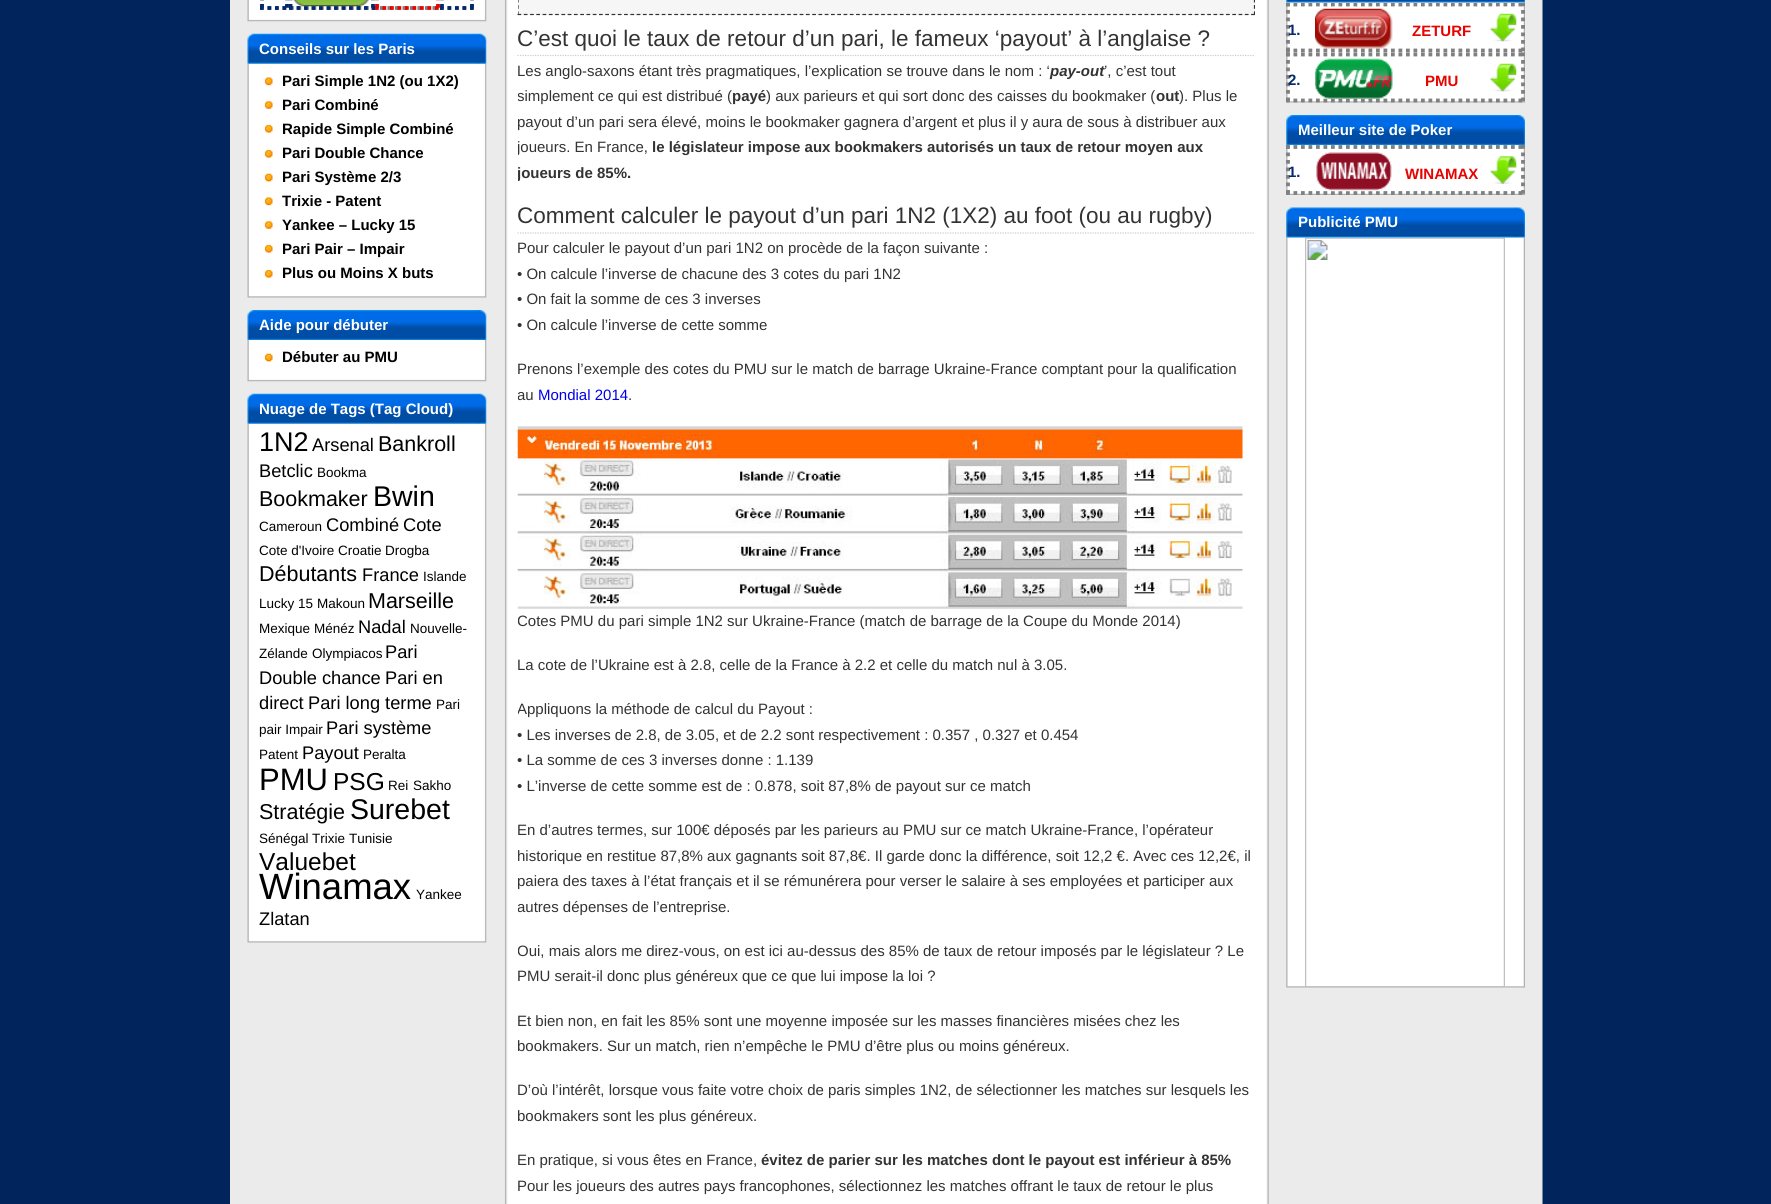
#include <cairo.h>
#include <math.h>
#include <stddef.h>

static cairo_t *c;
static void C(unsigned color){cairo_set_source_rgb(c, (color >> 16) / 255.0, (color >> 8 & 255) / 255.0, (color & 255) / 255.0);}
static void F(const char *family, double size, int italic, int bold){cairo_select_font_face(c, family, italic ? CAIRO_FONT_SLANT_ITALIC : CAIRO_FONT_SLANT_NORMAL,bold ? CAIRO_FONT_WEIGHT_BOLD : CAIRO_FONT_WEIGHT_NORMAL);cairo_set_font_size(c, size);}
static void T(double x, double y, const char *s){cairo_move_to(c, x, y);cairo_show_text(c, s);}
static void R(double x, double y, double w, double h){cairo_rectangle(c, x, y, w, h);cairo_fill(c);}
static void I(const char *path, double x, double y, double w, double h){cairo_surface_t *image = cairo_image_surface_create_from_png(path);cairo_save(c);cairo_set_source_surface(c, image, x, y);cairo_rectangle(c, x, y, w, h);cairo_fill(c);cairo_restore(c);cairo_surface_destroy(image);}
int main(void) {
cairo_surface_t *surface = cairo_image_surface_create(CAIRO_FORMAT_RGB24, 1771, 1204);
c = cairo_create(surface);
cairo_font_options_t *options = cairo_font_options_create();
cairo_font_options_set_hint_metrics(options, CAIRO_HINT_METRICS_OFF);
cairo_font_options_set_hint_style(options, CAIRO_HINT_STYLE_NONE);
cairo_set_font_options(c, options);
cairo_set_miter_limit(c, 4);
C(0x01245c);
cairo_paint(c);
I("1.png",230,0,1313,1204);
I("2.png",247,0,240,22);
cairo_new_path(c);
cairo_move_to(c,472,-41);
cairo_line_to(c,472,10);
C(0x808080);
cairo_set_line_width(c,3.8);
cairo_set_dash(c,(double[]){3.75,3.75},2,0);
cairo_stroke(c);
cairo_new_path(c);
cairo_move_to(c,260,8);
cairo_line_to(c,474,8);
cairo_stroke(c);
cairo_new_path(c);
cairo_move_to(c,262,-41);
cairo_line_to(c,262,10);
cairo_stroke(c);
cairo_new_path(c);
cairo_move_to(c,287,-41);
cairo_line_to(c,287,10);
cairo_move_to(c,260,8);
cairo_line_to(c,289,8);
cairo_move_to(c,262,-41);
cairo_line_to(c,262,10);
C(0x01296e);
cairo_stroke(c);
cairo_new_path(c);
cairo_move_to(c,373,-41);
cairo_line_to(c,373,10);
cairo_stroke(c);
cairo_new_path(c);
cairo_move_to(c,289,8);
cairo_line_to(c,375,8);
cairo_stroke(c);
cairo_new_path(c);
cairo_move_to(c,290.5,-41);
cairo_line_to(c,290.5,10);
cairo_stroke(c);
I("3.png",293,0,76,7);
cairo_new_path(c);
cairo_move_to(c,438,-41);
cairo_line_to(c,438,10);
C(0xe60300);
cairo_stroke(c);
cairo_new_path(c);
cairo_move_to(c,375,8);
cairo_line_to(c,440,8);
cairo_stroke(c);
cairo_new_path(c);
cairo_move_to(c,377,-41);
cairo_line_to(c,377,10);
cairo_stroke(c);
cairo_new_path(c);
cairo_move_to(c,472,-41);
cairo_line_to(c,472,10);
cairo_move_to(c,440,8);
cairo_line_to(c,474,8);
cairo_move_to(c,442,-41);
cairo_line_to(c,442,10);
C(0x01296e);
cairo_stroke(c);
I("5.png",247,63,240,235);
I("4.png",247,33,240,31);
F("Liberation Sans",15,0,1);
C(0xffffff);
T(259,54,"Conseils sur les Paris");
I("6.png",264,77,9,9);
C(0x000000);
T(282,86,"Pari Simple 1N2 (ou 1X2)");
I("7.png",264,101,9,8);
T(282,110,"Pari Combiné");
I("8.png",264,124,9,9);
T(282,134,"Rapide Simple Combiné");
I("8.png",264,149,9,9);
T(282,158,"Pari Double Chance");
I("9.png",264,173,9,9);
T(282,182,"Pari Système 2/3");
I("6.png",264,197,9,9);
T(282,206,"Trixie - Patent");
I("7.png",264,221,9,8);
T(282,230,"Yankee – Lucky 15");
I("8.png",264,244,9,9);
T(282,254,"Pari Pair – Impair");
I("8.png",264,269,9,9);
T(282,278,"Plus ou Moins X buts");
I("10.png",247,310,240,30);
C(0xffffff);
T(259,330,"Aide pour débuter");
I("11.png",247,340,240,42);
I("9.png",264,353,9,9);
C(0x000000);
T(282,362,"Débuter au PMU");
I("12.png",247,423,240,520);
I("4.png",247,393,240,31);
C(0xffffff);
T(259,414,"Nuage de Tags (Tag Cloud)");
F("Liberation Sans",27,0,0);
C(0x000000);
T(259,451,"1N2");
F("Liberation Sans",18.25,0,0);
T(312,451,"Arsenal");
F("Liberation Sans",21.5,0,0);
T(378,451,"Bankroll");
F("Liberation Sans",18.25,0,0);
T(259,477,"Betclic");
F("Liberation Sans",13.5,0,0);
T(317,477,"Bookma");
F("Liberation Sans",21.5,0,0);
T(259,506,"Bookmaker");
F("Liberation Sans",28.5,0,0);
T(373,506,"Bwin");
F("Liberation Sans",13.5,0,0);
T(259,531,"Cameroun");
F("Liberation Sans",18.25,0,0);
T(326,531,"Combiné");
T(403,531,"Cote");
F("Liberation Sans",13.5,0,0);
T(259,555,"Cote d'Ivoire");
T(338,555,"Croatie");
T(385,555,"Drogba");
F("Liberation Sans",21.5,0,0);
T(259,581,"Débutants");
F("Liberation Sans",18.25,0,0);
T(362,581,"France");
F("Liberation Sans",13.5,0,0);
T(423,581,"Islande");
T(259,608,"Lucky 15");
T(317,608,"Makoun");
F("Liberation Sans",21.5,0,0);
T(368,608,"Marseille");
F("Liberation Sans",13.5,0,0);
T(259,633,"Mexique");
T(314,633,"Ménéz");
F("Liberation Sans",18.25,0,0);
T(358,633,"Nadal");
F("Liberation Sans",13.5,0,0);
T(410,633,"Nouvelle-");
T(259,658,"Zélande");
T(312,658,"Olympiacos");
F("Liberation Sans",18.25,0,0);
T(385,658,"Pari");
T(259,684,"Double chance");
T(385,684,"Pari en");
T(259,709,"direct");
T(308,709,"Pari long terme");
F("Liberation Sans",13.5,0,0);
T(436,709,"Pari");
T(259,734,"pair Impair");
F("Liberation Sans",18.25,0,0);
T(326,734,"Pari système");
F("Liberation Sans",13.5,0,0);
T(259,759,"Patent");
F("Liberation Sans",18.25,0,0);
T(302,759,"Payout");
F("Liberation Sans",13.5,0,0);
T(363,759,"Peralta");
F("Liberation Sans",31,0,0);
T(259,790,"PMU");
F("Liberation Sans",24.5,0,0);
T(333,790,"PSG");
F("Liberation Sans",13.5,0,0);
T(388,790,"Rei");
T(413,790,"Sakho");
F("Liberation Sans",21.5,0,0);
T(259,819,"Stratégie");
F("Liberation Sans",28.5,0,0);
T(350,819,"Surebet");
F("Liberation Sans",13.5,0,0);
T(259,843,"Sénégal");
T(312,843,"Trixie");
T(349,843,"Tunisie");
F("Liberation Sans",24.5,0,0);
T(259,870,"Valuebet");
F("Liberation Sans",36.5,0,0);
T(259,899,"Winamax");
F("Liberation Sans",13.5,0,0);
T(416,899,"Yankee");
F("Liberation Sans",18.25,0,0);
T(259,925,"Zlatan");
C(0xf6f6f6);
R(518,0,737,15);
cairo_save(c);
cairo_rectangle(c,518,0,737,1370);
cairo_clip(c);
cairo_new_path(c);
cairo_move_to(c,1254.5,-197.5);
cairo_line_to(c,1254.5,15);
C(0x333333);
cairo_set_line_width(c,1.2);
cairo_set_dash(c,(double[]){3.75,2.58},2,0);
cairo_stroke(c);
cairo_restore(c);
cairo_new_path(c);
cairo_move_to(c,517.5,14.5);
cairo_line_to(c,1255,14.5);
C(0x333333);
cairo_set_line_width(c,1.2);
cairo_set_dash(c,(double[]){3.75,2.52},2,0);
cairo_stroke(c);
cairo_save(c);
cairo_rectangle(c,518,0,737,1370);
cairo_clip(c);
cairo_new_path(c);
cairo_move_to(c,518,-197.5);
cairo_line_to(c,518,15);
cairo_set_dash(c,(double[]){3.75,2.58},2,0);
cairo_stroke(c);
cairo_restore(c);
cairo_new_path(c);
cairo_move_to(c,517.5,55.5);
cairo_line_to(c,1255,55.5);
C(0xcccccc);
cairo_set_dash(c,(double[]){1.25,1.25},2,0);
cairo_stroke(c);
F("Liberation Sans",22.5,0,0);
C(0x333333);
T(517,46,"C’est quoi le taux de retour d’un pari, le fameux ‘payout’ à l’anglaise ?");
F("Liberation Sans",15,0,0);
T(517,76,"Les anglo-saxons étant très pragmatiques, l’explication se trouve dans le nom : ‘");
F("Liberation Sans",15,1,1);
T(1050,76,"pay-out");
F("Liberation Sans",15,0,0);
T(1104,76,"’, c’est tout");
cairo_save(c);
cairo_rectangle(c,518,0,737,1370);
cairo_clip(c);
T(517,101,"simplement ce qui est distribué (");
cairo_restore(c);
F("Liberation Sans",15,0,1);
T(732,101,"payé");
F("Liberation Sans",15,0,0);
T(766,101,") aux parieurs et qui sort donc des caisses du bookmaker (");
F("Liberation Sans",15,0,1);
T(1156,101,"out");
F("Liberation Sans",15,0,0);
T(1179,101,"). Plus le");
cairo_save(c);
cairo_rectangle(c,518,0,737,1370);
cairo_clip(c);
T(517,127,"payout d’un pari sera élevé, moins le bookmaker gagnera d’argent et plus il y aura de sous à distribuer aux");
T(517,152,"joueurs. En France,");
cairo_restore(c);
F("Liberation Sans",15,0,1);
T(652,152,"le législateur impose aux bookmakers autorisés un taux de retour moyen aux");
cairo_save(c);
cairo_rectangle(c,518,0,737,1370);
cairo_clip(c);
T(517,178,"joueurs de 85%.");
cairo_restore(c);
cairo_new_path(c);
cairo_move_to(c,517.5,233);
cairo_line_to(c,1255,233);
C(0xcccccc);
cairo_stroke(c);
F("Liberation Sans",22.5,0,0);
C(0x333333);
T(517,223,"Comment calculer le payout d’un pari 1N2 (1X2) au foot (ou au rugby)");
F("Liberation Sans",15,0,0);
T(517,253,"Pour calculer le payout d’un pari 1N2 on procède de la façon suivante :");
T(517,279,"• On calcule l’inverse de chacune des 3 cotes du pari 1N2");
T(517,304,"• On fait la somme de ces 3 inverses");
T(517,330,"• On calcule l’inverse de cette somme");
T(517,374,"Prenons l’exemple des cotes du PMU sur le match de barrage Ukraine-France comptant pour la qualification");
cairo_save(c);
cairo_rectangle(c,518,0,737,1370);
cairo_clip(c);
T(517,400,"au");
cairo_restore(c);
C(0x0000ee);
T(538,400,"Mondial 2014");
C(0x333333);
T(628,400,".");
I("13.png",517,426,726,183);
cairo_save(c);
cairo_rectangle(c,518,0,737,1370);
cairo_clip(c);
T(517,626,"Cotes PMU du pari simple 1N2 sur Ukraine-France (match de barrage de la Coupe du Monde 2014)");
cairo_restore(c);
T(517,670,"La cote de l’Ukraine est à 2.8, celle de la France à 2.2 et celle du match nul à 3.05.");
cairo_save(c);
cairo_rectangle(c,518,0,737,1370);
cairo_clip(c);
T(517,714,"Appliquons la méthode de calcul du Payout :");
cairo_restore(c);
T(517,740,"• Les inverses de 2.8, de 3.05, et de 2.2 sont respectivement : 0.357 , 0.327 et 0.454");
T(517,765,"• La somme de ces 3 inverses donne : 1.139");
T(517,791,"• L’inverse de cette somme est de : 0.878, soit 87,8% de payout sur ce match");
T(517,835,"En d’autres termes, sur 100€ déposés par les parieurs au PMU sur ce match Ukraine-France, l’opérateur");
cairo_save(c);
cairo_rectangle(c,518,0,737,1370);
cairo_clip(c);
T(517,861,"historique en restitue 87,8% aux gagnants soit 87,8€. Il garde donc la différence, soit 12,2 €. Avec ces 12,2€, il");
T(517,886,"paiera des taxes à l’état français et il se rémunérera pour verser le salaire à ses employées et participer aux");
T(517,912,"autres dépenses de l’entreprise.");
T(517,956,"Oui, mais alors me direz-vous, on est ici au-dessus des 85% de taux de retour imposés par le législateur ? Le");
cairo_restore(c);
T(517,981,"PMU serait-il donc plus généreux que ce que lui impose la loi ?");
T(517,1026,"Et bien non, en fait les 85% sont une moyenne imposée sur les masses financières misées chez les");
cairo_save(c);
cairo_rectangle(c,518,0,737,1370);
cairo_clip(c);
T(517,1051,"bookmakers. Sur un match, rien n’empêche le PMU d’être plus ou moins généreux.");
cairo_restore(c);
T(517,1095,"D’où l’intérêt, lorsque vous faite votre choix de paris simples 1N2, de sélectionner les matches sur lesquels les");
cairo_save(c);
cairo_rectangle(c,518,0,737,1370);
cairo_clip(c);
T(517,1121,"bookmakers sont les plus généreux.");
cairo_restore(c);
T(517,1165,"En pratique, si vous êtes en France,");
F("Liberation Sans",15,0,1);
T(761,1165,"évitez de parier sur les matches dont le payout est inférieur à 85%");
F("Liberation Sans",15,0,0);
T(517,1191,"Pour les joueurs des autres pays francophones, sélectionnez les matches offrant le taux de retour le plus");
I("15.png",1286,2,239,101);
I("14.png",1286,0,239,3);
cairo_save(c);
cairo_rectangle(c,1286,3,239,100);
cairo_clip(c);
cairo_new_path(c);
cairo_move_to(c,1286,4.5);
cairo_line_to(c,1525,4.5);
C(0x808080);
cairo_set_line_width(c,3.8);
cairo_set_dash(c,(double[]){3.75,3.75},2,0);
cairo_stroke(c);
cairo_new_path(c);
cairo_move_to(c,1523,2.5);
cairo_line_to(c,1523,52.5);
cairo_stroke(c);
cairo_restore(c);
cairo_new_path(c);
cairo_move_to(c,1286,50.5);
cairo_line_to(c,1525,50.5);
C(0x808080);
cairo_set_line_width(c,3.8);
cairo_set_dash(c,(double[]){3.75,3.75},2,0);
cairo_stroke(c);
cairo_save(c);
cairo_rectangle(c,1286,3,239,100);
cairo_clip(c);
cairo_new_path(c);
cairo_move_to(c,1288,2.5);
cairo_line_to(c,1288,52.5);
cairo_stroke(c);
cairo_restore(c);
F("Liberation Sans",15,0,1);
C(0x01296e);
T(1288,35,"1.");
I("16.png",1315,8,78,41);
C(0xe60300);
T(1412,36,"ZETURF");
I("17.png",1490,13,27,29);
cairo_new_path(c);
cairo_move_to(c,1286,54.5);
cairo_line_to(c,1525,54.5);
C(0x808080);
cairo_stroke(c);
cairo_new_path(c);
cairo_move_to(c,1523,52.5);
cairo_line_to(c,1523,102.5);
cairo_stroke(c);
cairo_new_path(c);
cairo_move_to(c,1286,100.5);
cairo_line_to(c,1525,100.5);
cairo_stroke(c);
cairo_new_path(c);
cairo_move_to(c,1288,52.5);
cairo_line_to(c,1288,102.5);
cairo_stroke(c);
C(0x01296e);
T(1288,85,"2.");
I("18.png",1315,58,78,41);
C(0xe60300);
T(1425,86,"PMU");
I("17.png",1490,63,27,29);
I("19.png",1286,115,239,30);
C(0xffffff);
T(1298,135,"Meilleur site de Poker");
I("20.png",1286,145,239,50);
cairo_new_path(c);
cairo_move_to(c,1286,147);
cairo_line_to(c,1525,147);
C(0x808080);
cairo_stroke(c);
cairo_new_path(c);
cairo_move_to(c,1523,145);
cairo_line_to(c,1523,195);
cairo_stroke(c);
cairo_new_path(c);
cairo_move_to(c,1286,193);
cairo_line_to(c,1525,193);
cairo_stroke(c);
cairo_new_path(c);
cairo_move_to(c,1288,145);
cairo_line_to(c,1288,195);
cairo_stroke(c);
C(0x01296e);
T(1288,177,"1.");
I("21.png",1316,152,76,40);
C(0xe60300);
T(1405,179,"WINAMAX");
I("22.png",1490,156,27,28);
I("24.png",1286,237,239,751);
I("25.png",1305,237,200,750);
I("23.png",1286,207,239,31);
C(0xffffff);
T(1298,227,"Publicité PMU");
cairo_surface_write_to_png(surface, "o.png");
cairo_font_options_destroy(options);
cairo_destroy(c);
cairo_surface_destroy(surface);
return 0;
}
